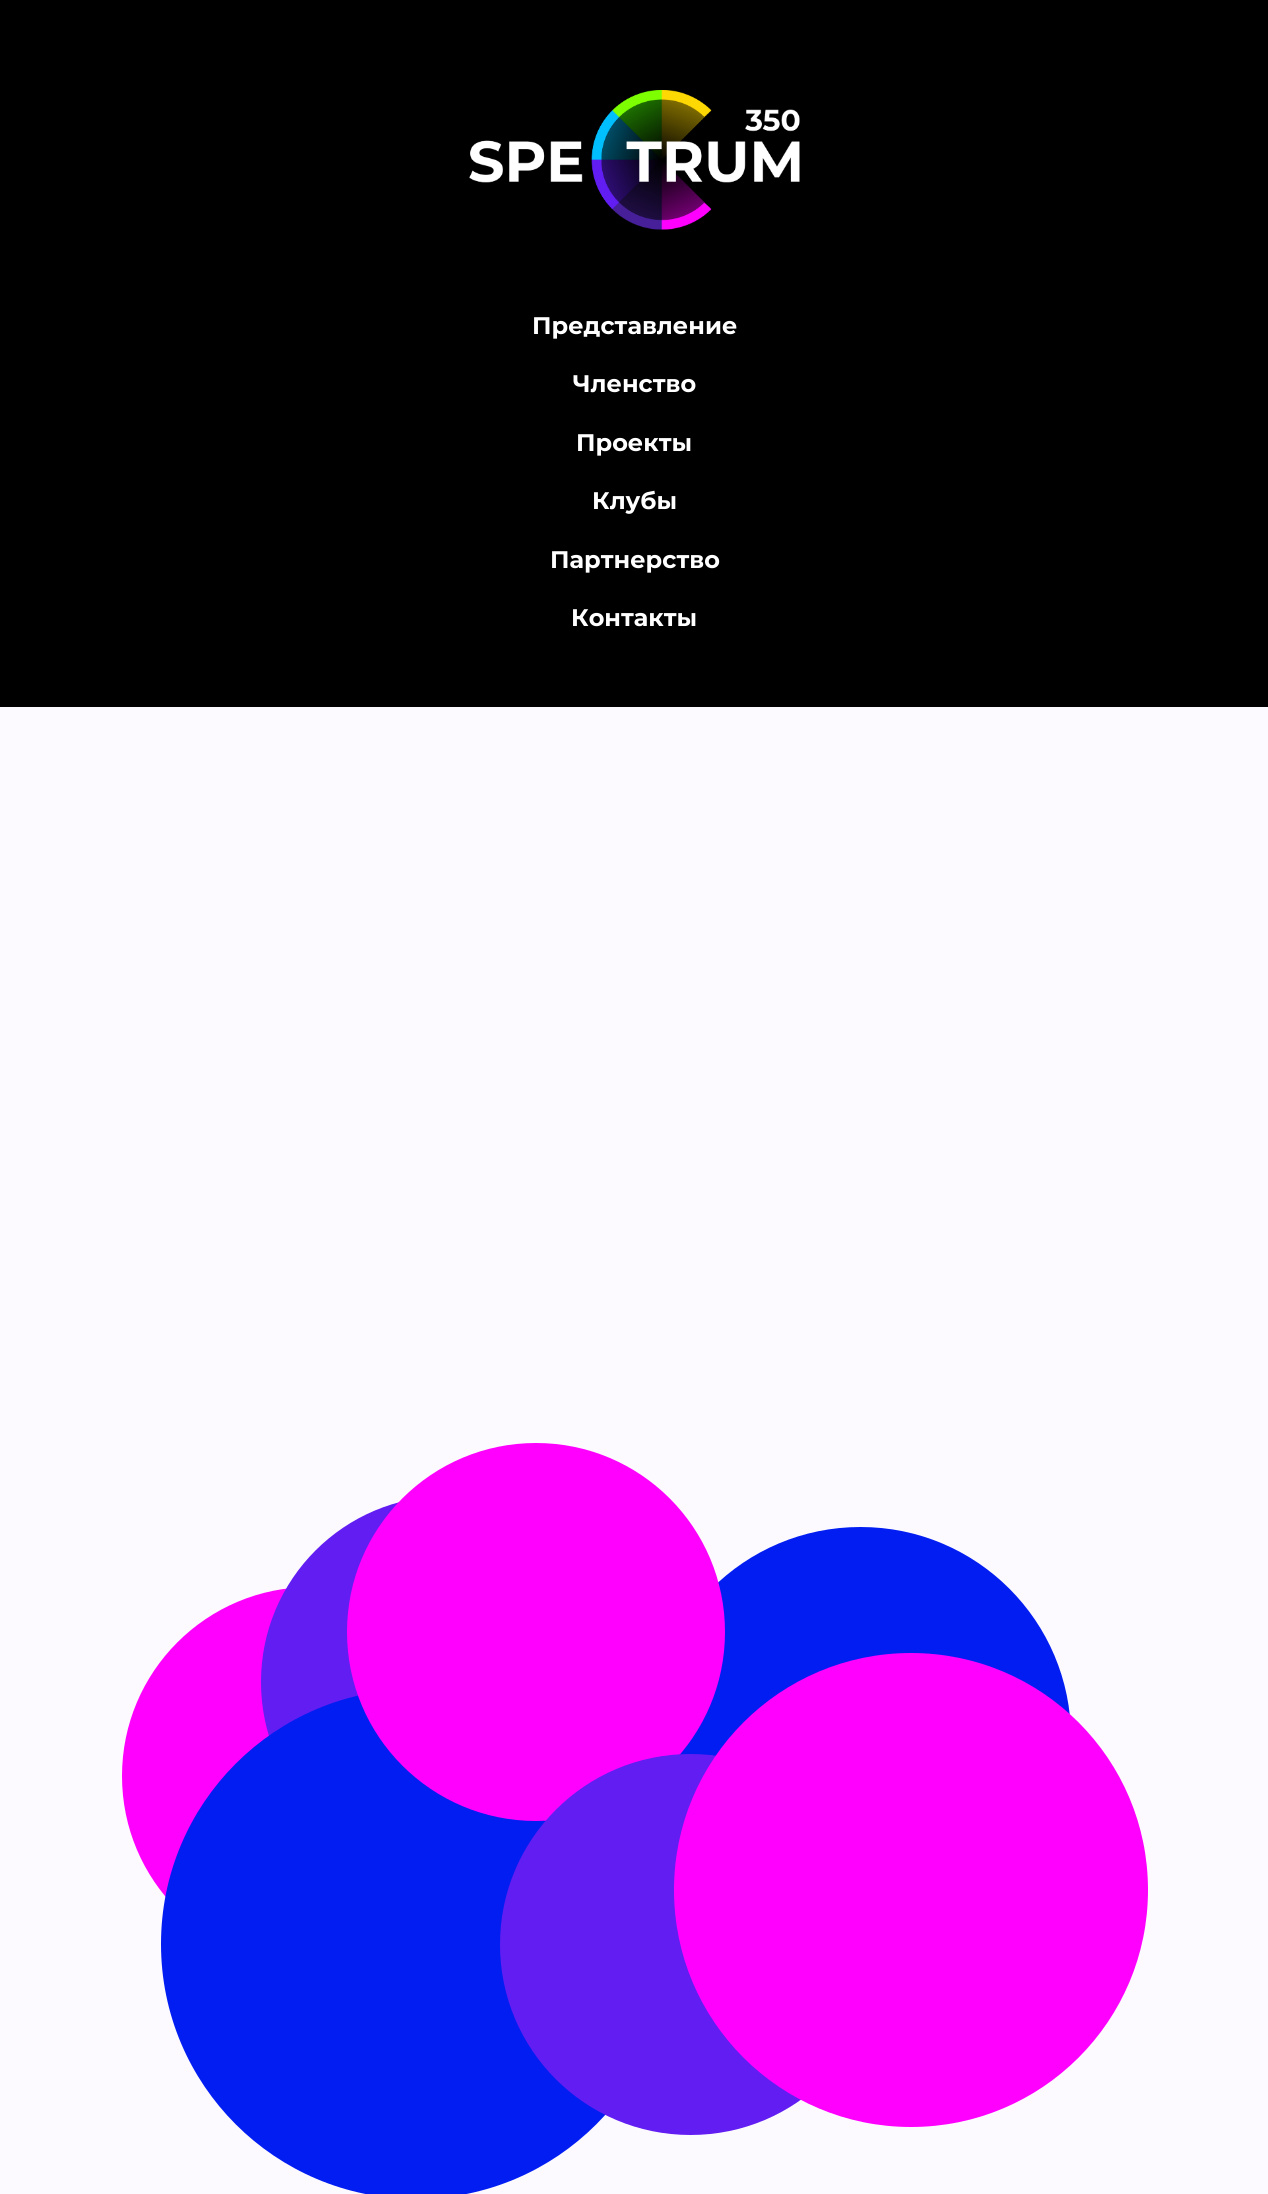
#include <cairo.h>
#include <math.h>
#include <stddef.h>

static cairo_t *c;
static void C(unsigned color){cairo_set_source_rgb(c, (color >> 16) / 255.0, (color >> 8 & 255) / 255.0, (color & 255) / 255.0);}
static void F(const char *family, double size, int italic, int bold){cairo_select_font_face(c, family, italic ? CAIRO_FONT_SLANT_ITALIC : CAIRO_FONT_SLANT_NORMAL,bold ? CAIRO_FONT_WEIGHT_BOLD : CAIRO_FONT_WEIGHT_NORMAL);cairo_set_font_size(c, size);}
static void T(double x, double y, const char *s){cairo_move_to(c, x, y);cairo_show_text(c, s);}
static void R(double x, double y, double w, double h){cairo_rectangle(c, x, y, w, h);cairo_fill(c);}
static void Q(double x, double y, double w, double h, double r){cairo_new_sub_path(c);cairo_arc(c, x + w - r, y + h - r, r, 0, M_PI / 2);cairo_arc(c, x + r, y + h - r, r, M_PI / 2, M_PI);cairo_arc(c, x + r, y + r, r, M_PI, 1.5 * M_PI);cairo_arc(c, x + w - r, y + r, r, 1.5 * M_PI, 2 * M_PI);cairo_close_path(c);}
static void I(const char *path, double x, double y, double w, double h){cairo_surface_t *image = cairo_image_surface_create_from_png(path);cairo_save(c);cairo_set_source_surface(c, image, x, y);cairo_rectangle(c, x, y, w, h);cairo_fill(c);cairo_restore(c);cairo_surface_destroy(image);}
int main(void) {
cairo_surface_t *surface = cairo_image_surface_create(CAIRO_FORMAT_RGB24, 1268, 2194);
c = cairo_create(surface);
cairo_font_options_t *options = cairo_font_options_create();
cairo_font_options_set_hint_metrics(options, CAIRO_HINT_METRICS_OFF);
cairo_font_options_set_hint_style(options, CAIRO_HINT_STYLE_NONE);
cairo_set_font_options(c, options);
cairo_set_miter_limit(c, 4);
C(0x000000);
cairo_paint(c);
I("1.png",469,90,331,140);
F("Montserrat",24,0,1);
C(0xffffff);
T(532,334,"Представление");
T(573,392,"Членство");
T(576,451,"Проекты");
T(592,509,"Клубы");
T(550,568,"Партнерство");
T(571,626,"Контакты");
C(0xfcfafe);
R(0,707,1268,1487);
C(0xff00ff);
cairo_new_path(c);
cairo_arc(c,311,1776,189,0,2 * M_PI);
cairo_fill(c);
C(0x611df2);
cairo_arc(c,447,1682,186,0,2 * M_PI);
cairo_fill(c);
C(0x011df2);
cairo_arc(c,416,1944,255,0,2 * M_PI);
cairo_fill(c);
Q(650,1527,421,422,210.5);
cairo_fill(c);
C(0xff00ff);
cairo_arc(c,536,1632,189,0,2 * M_PI);
cairo_fill(c);
C(0x611df2);
cairo_arc(c,690.5,1944.5,190.5,0,2 * M_PI);
cairo_fill(c);
C(0xff00ff);
cairo_arc(c,911,1890,237,0,2 * M_PI);
cairo_fill(c);
cairo_surface_write_to_png(surface, "o.png");
cairo_font_options_destroy(options);
cairo_destroy(c);
cairo_surface_destroy(surface);
return 0;
}
